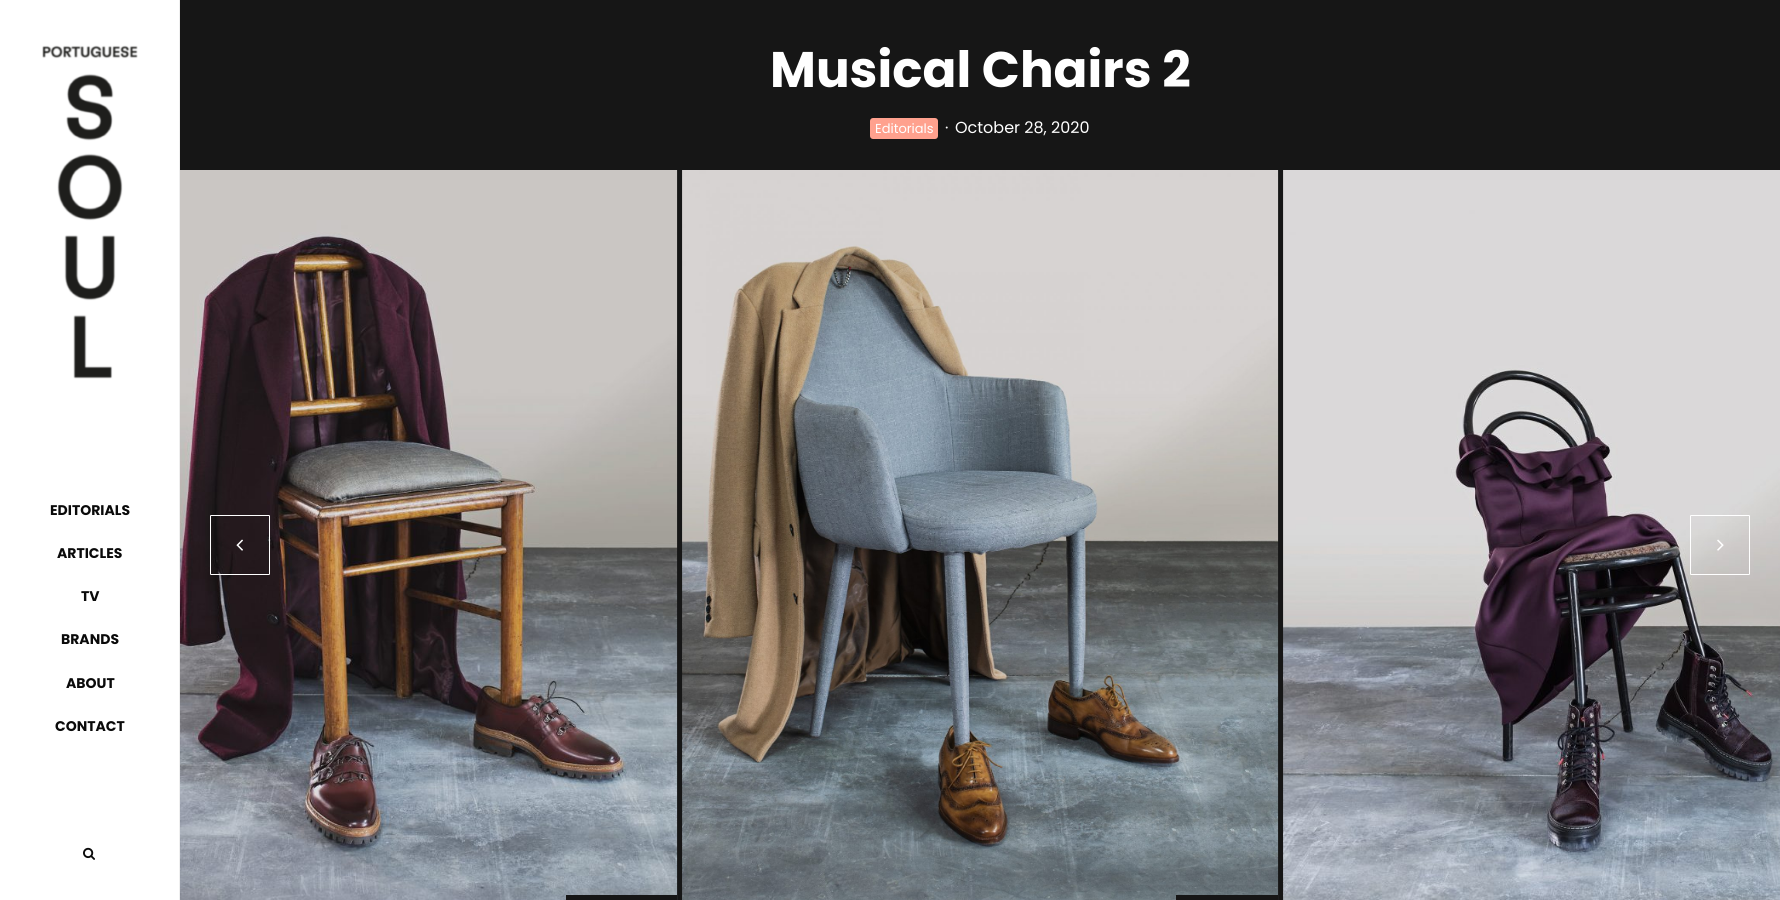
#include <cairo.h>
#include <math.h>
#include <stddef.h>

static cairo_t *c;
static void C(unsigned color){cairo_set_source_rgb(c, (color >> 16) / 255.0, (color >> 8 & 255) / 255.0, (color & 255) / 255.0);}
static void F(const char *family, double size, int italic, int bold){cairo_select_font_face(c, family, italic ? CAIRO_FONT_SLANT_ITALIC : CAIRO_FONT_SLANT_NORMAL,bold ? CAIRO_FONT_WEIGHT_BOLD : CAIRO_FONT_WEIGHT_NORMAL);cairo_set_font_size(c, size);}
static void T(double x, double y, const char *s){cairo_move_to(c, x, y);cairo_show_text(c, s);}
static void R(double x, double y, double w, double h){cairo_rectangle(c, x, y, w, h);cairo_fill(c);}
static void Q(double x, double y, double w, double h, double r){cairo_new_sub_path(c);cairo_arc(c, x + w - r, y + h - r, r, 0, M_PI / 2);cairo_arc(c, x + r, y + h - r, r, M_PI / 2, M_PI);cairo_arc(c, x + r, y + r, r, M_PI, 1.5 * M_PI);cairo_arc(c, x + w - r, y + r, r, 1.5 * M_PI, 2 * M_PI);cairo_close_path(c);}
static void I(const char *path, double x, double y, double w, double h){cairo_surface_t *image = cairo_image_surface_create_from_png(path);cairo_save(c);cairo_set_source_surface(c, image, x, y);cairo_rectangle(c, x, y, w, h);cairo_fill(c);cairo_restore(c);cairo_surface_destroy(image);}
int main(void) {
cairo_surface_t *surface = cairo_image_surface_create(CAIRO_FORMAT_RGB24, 1780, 900);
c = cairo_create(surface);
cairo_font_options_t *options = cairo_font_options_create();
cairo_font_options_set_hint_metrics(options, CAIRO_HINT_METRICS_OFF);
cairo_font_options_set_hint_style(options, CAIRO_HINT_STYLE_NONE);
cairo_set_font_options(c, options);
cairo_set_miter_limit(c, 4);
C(0xffffff);
cairo_paint(c);
C(0x161616);
R(180,0,1600,170);
F("Poppins",50,0,1);
C(0xffffff);
T(770,87,"Musical Chairs 2");
C(0xffa18e);
Q(870,118,68,21,3);
cairo_fill(c);
F("Poppins",13,0,0);
C(0xffffff);
T(875,133,"Editorials");
F("Poppins",16,0,0);
T(945,133,"·");
T(955,133,"October 28, 2020");
C(0x161616);
R(677,170,607,730);
I("1.png",180,170,498,730);
R(566,895,111,5);
I("2.png",682,170,597,730);
R(1176,895,102,5);
I("3.png",1283,170,497,730);
Q(210.5,515.5,59,59,.5);
C(0xffffff);
cairo_set_line_width(c,1);
cairo_stroke(c);
I("4.png",236,539,7,12);
Q(1690.5,515.5,59,59,.5);
cairo_stroke(c);
I("5.png",1717,539,7,12);
C(0xefefef);
R(179,0,1,900);
I("6.png",42,45,96,334);
F("Poppins",14,0,1);
C(0x0a0a0a);
T(50,515,"EDITORIALS");
T(57,558,"ARTICLES");
T(81,601,"TV");
T(61,644,"BRANDS");
T(66,688,"ABOUT");
T(55,731,"CONTACT");
I("7.png",83,847,12,13);
cairo_surface_write_to_png(surface, "o.png");
cairo_font_options_destroy(options);
cairo_destroy(c);
cairo_surface_destroy(surface);
return 0;
}
